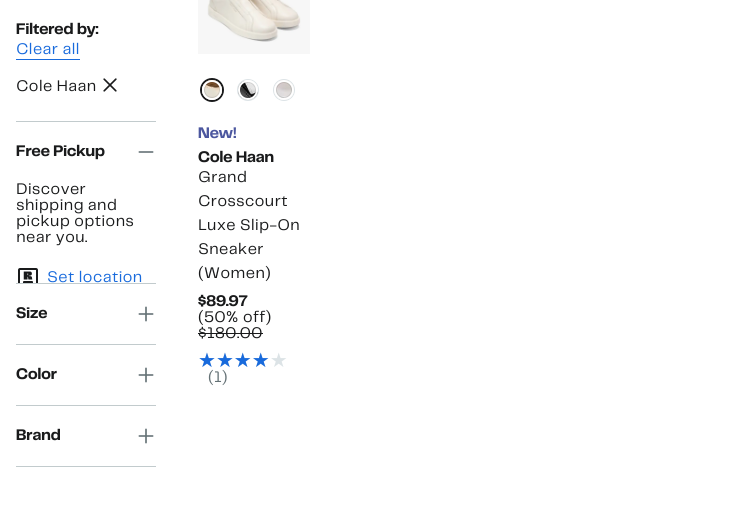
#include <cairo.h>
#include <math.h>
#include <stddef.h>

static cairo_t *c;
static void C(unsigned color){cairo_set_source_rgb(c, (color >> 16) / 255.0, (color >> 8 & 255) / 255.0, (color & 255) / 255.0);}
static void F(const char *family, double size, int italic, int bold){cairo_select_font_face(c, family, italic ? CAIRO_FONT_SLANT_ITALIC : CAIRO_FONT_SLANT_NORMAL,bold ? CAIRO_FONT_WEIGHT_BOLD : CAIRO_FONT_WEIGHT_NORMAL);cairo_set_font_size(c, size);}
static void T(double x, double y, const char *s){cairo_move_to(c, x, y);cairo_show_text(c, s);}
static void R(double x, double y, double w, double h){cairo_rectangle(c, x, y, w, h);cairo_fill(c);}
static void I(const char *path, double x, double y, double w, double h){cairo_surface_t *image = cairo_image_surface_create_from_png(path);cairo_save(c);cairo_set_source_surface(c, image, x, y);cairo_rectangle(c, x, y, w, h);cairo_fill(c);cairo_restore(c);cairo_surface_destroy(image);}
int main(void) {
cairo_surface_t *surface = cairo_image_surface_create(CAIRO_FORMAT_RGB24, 734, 506);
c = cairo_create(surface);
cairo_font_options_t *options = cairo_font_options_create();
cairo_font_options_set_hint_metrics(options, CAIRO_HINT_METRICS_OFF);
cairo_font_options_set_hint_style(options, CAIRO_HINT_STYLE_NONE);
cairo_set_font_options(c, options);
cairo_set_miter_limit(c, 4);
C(0xffffff);
cairo_paint(c);
F("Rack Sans",16,0,1);
C(0x191a1b);
T(16,34,"Filtered by:");
C(0x186adc);
R(16,59,64,1);
F("Rack Sans",16,0,0);
T(16,54,"Clear all");
C(0x191a1b);
T(16,91,"Cole Haan");
I("1.png",103,78,14,14);
C(0xc2cbcd);
R(16,121,140,1);
R(16,283,140,1);
F("Rack Sans",16,0,1);
C(0x191a1b);
T(16,156,"Free Pickup");
I("2.png",138,151,16,2);
F("Rack Sans",16,0,0);
T(16,194,"Discover");
T(16,210,"shipping and");
T(16,226,"pickup options");
T(16,242,"near you.");
I("3.png",18,268,20,15);
C(0x186adc);
T(47,282,"Set location");
C(0xc2cbcd);
R(16,344,140,1);
F("Rack Sans",16,0,1);
C(0x191a1b);
T(16,318,"Size");
I("4.png",138,306,16,16);
C(0xc2cbcd);
R(16,405,140,1);
C(0x191a1b);
T(16,379,"Color");
I("4.png",138,367,16,16);
C(0xc2cbcd);
R(16,466,140,1);
C(0x191a1b);
T(16,440,"Brand");
I("4.png",138,428,16,16);
C(0xf7f7f7);
R(198,0,112,54);
I("5.png",207,0,94,42);
cairo_arc(c,212,90,11,0,2 * M_PI);
C(0x191a1b);
cairo_stroke(c);
I("6.png",202,80,20,20);
cairo_arc(c,212,90,9,0,2 * M_PI);
C(0xffffff);
cairo_stroke(c);
cairo_arc(c,212,90,7.5,0,2 * M_PI);
cairo_set_source_rgba(c,0,0,0,0.1);
cairo_set_line_width(c,1);
cairo_stroke(c);
cairo_arc(c,248,90,10.5,0,2 * M_PI);
C(0xdce3e6);
cairo_stroke(c);
I("7.png",238,80,20,20);
cairo_arc(c,248,90,9,0,2 * M_PI);
C(0xffffff);
cairo_set_line_width(c,2);
cairo_stroke(c);
cairo_arc(c,248,90,7.5,0,2 * M_PI);
cairo_set_source_rgba(c,0,0,0,0.1);
cairo_set_line_width(c,1);
cairo_stroke(c);
cairo_arc(c,284,90,10.5,0,2 * M_PI);
C(0xdce3e6);
cairo_stroke(c);
I("8.png",274,80,20,20);
cairo_arc(c,284,90,9,0,2 * M_PI);
C(0xffffff);
cairo_set_line_width(c,2);
cairo_stroke(c);
cairo_arc(c,284,90,7.5,0,2 * M_PI);
cairo_set_source_rgba(c,0,0,0,0.1);
cairo_set_line_width(c,1);
cairo_stroke(c);
C(0x4c579f);
T(198,138,"New!");
C(0x191a1b);
T(198,162,"Cole Haan");
F("Rack Sans",16,0,0);
T(198,182,"Grand");
T(198,206,"Crosscourt");
T(198,230,"Luxe Slip-On");
T(198,254,"Sneaker");
T(198,278,"(Women)");
F("Rack Sans",16,0,1);
T(198,306,"$89.97");
F("Rack Sans",16,0,0);
T(198,322,"(50% off)");
T(198,338,"$180.00");
R(198,333,65,1);
F("DejaVu Sans",20,0,0);
C(0xdce3e6);
T(198,367,"★★★★★");
C(0x186adc);
T(198,367,"★★★★");
F("Rack Sans",16,0,0);
C(0x647175);
T(208,382,"(1)");
cairo_surface_write_to_png(surface, "o.png");
cairo_font_options_destroy(options);
cairo_destroy(c);
cairo_surface_destroy(surface);
return 0;
}
